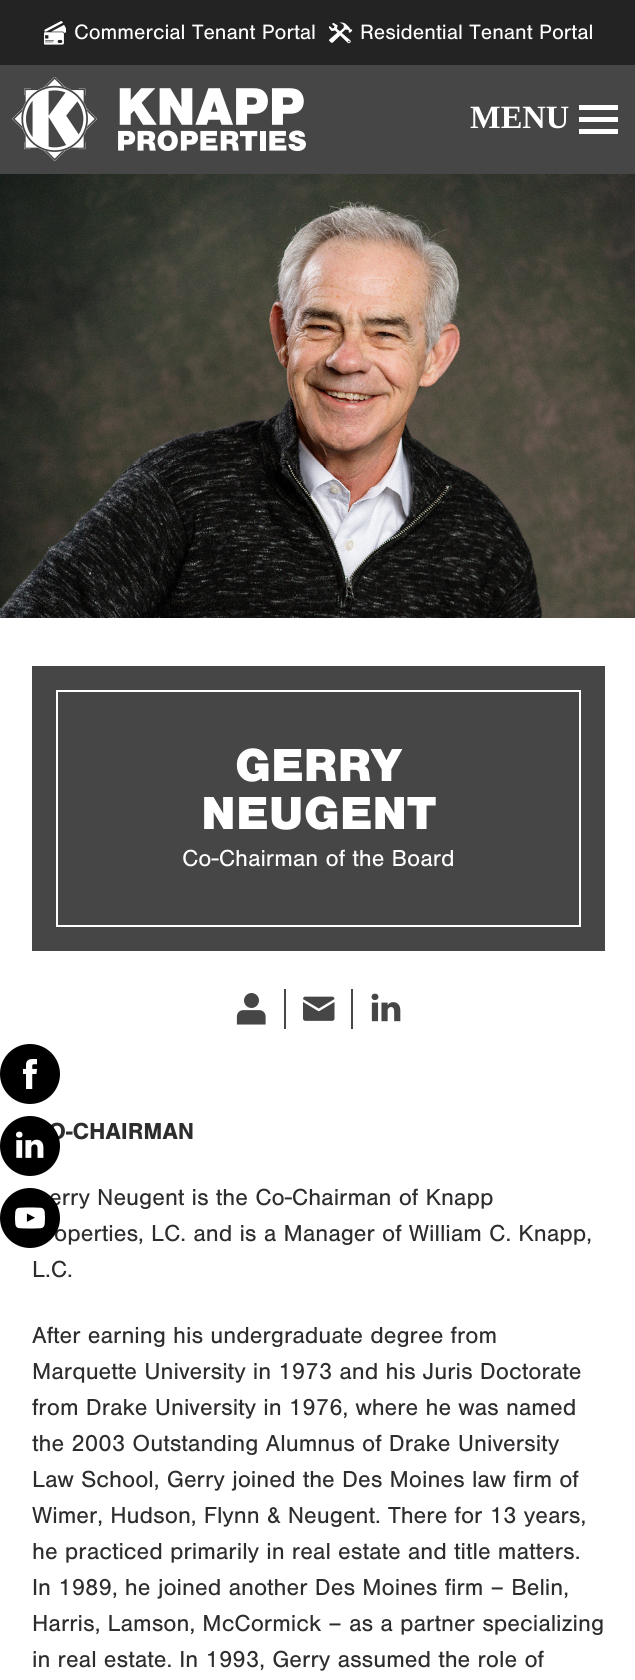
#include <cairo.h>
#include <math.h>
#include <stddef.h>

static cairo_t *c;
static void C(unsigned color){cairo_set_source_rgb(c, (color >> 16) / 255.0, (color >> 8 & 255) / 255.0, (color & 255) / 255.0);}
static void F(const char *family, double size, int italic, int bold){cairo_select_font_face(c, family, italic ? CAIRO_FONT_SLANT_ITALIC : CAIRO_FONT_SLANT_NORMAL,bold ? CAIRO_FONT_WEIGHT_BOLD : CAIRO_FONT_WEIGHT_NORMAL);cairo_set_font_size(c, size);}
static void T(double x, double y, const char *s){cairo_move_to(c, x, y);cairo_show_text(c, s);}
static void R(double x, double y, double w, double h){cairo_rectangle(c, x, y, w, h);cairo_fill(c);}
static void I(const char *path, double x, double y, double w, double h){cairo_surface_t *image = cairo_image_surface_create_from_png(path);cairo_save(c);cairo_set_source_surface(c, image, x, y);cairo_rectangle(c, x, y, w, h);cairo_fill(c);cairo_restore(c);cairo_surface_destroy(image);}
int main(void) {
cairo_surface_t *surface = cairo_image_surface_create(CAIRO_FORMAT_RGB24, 635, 1680);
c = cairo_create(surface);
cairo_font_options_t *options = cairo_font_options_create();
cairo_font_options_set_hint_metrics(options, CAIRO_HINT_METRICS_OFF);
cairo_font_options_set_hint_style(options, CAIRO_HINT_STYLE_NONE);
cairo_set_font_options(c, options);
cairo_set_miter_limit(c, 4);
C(0xffffff);
cairo_paint(c);
C(0x464646);
R(0,65,635,109);
C(0x232323);
R(0,0,635,65);
I("1.png",44,21,22,24);
F("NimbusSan",21.6,0,0);
C(0xffffff);
T(74,39,"Commercial Tenant Portal");
I("2.png",329,22,24,22);
T(360,39,"Residential Tenant Portal");
I("3.png",12,77,294,85);
F("Liberation Serif",32.5,0,1);
T(470,128,"MENU");
R(579,105,39,5);
R(579,117,39,5);
R(579,129,39,5);
C(0x000000);
cairo_new_path(c);
cairo_arc(c,30,1074,30,0,2 * M_PI);
cairo_fill(c);
I("4.png",23,1059,14,30);
F("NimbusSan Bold",24,0,1);
C(0x2d2d2d);
T(48,1139,"O-CHAIRMAN");
C(0x000000);
cairo_new_path(c);
cairo_arc(c,30,1146,30,0,2 * M_PI);
cairo_fill(c);
I("5.png",16,1131,28,27);
F("NimbusSan",24,0,0);
C(0x2d2d2d);
T(49,1205,"erry Neugent is the Co-Chairman of Knapp");
T(54,1241,"operties, LC. and is a Manager of William C. Knapp,");
C(0x000000);
cairo_new_path(c);
cairo_arc(c,30,1218,30,0,2 * M_PI);
cairo_fill(c);
I("6.png",15,1207,30,22);
I("7.png",0,174,635,444);
C(0x464646);
R(32,666,573,285);
cairo_rectangle(c,57,691,523,235);
C(0xffffff);
cairo_stroke(c);
F("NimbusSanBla",48,0,0);
T(235,781,"GERRY");
T(201,829,"NEUGENT");
F("NimbusSan",24,0,0);
T(182,866,"Co-Chairman of the Board");
I("8.png",236,993,30,32);
C(0x464646);
R(284,989,2,40);
I("9.png",303,996,32,25);
R(351,989,2,40);
I("10.png",371,993,30,29);
C(0x2d2d2d);
T(32,1277,"L.C.");
T(32,1343,"After earning his undergraduate degree from");
T(32,1379,"Marquette University in 1973 and his Juris Doctorate");
T(32,1415,"from Drake University in 1976, where he was named");
T(32,1451,"the 2003 Outstanding Alumnus of Drake University");
T(32,1487,"Law School, Gerry joined the Des Moines law firm of");
T(32,1523,"Wimer, Hudson, Flynn & Neugent. There for 13 years,");
T(32,1559,"he practiced primarily in real estate and title matters.");
T(32,1595,"In 1989, he joined another Des Moines firm – Belin,");
T(32,1631,"Harris, Lamson, McCormick – as a partner specializing");
T(32,1667,"in real estate. In 1993, Gerry assumed the role of");
cairo_surface_write_to_png(surface, "o.png");
cairo_font_options_destroy(options);
cairo_destroy(c);
cairo_surface_destroy(surface);
return 0;
}
